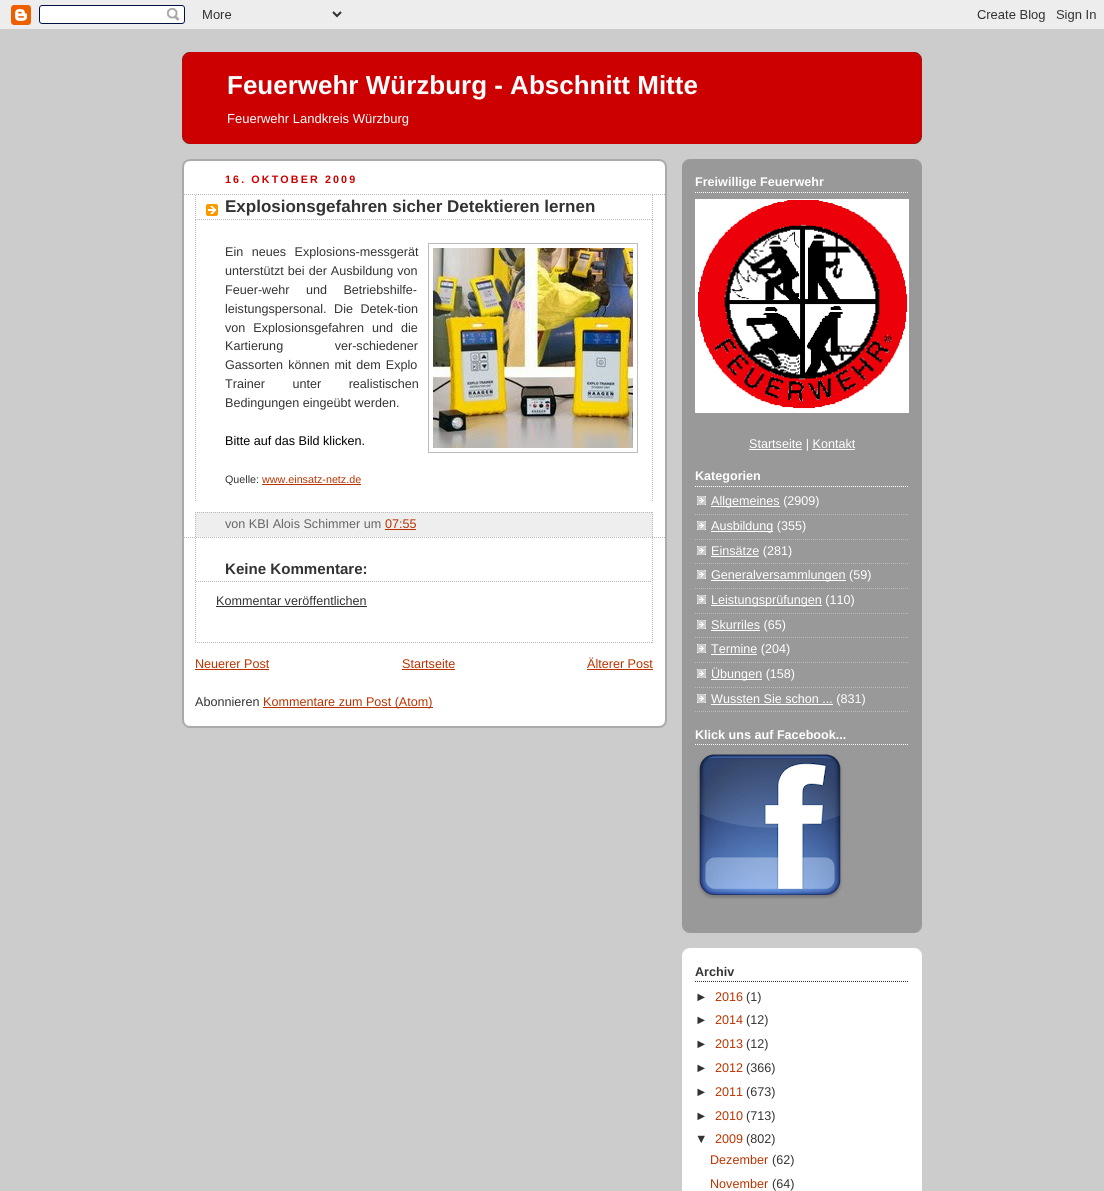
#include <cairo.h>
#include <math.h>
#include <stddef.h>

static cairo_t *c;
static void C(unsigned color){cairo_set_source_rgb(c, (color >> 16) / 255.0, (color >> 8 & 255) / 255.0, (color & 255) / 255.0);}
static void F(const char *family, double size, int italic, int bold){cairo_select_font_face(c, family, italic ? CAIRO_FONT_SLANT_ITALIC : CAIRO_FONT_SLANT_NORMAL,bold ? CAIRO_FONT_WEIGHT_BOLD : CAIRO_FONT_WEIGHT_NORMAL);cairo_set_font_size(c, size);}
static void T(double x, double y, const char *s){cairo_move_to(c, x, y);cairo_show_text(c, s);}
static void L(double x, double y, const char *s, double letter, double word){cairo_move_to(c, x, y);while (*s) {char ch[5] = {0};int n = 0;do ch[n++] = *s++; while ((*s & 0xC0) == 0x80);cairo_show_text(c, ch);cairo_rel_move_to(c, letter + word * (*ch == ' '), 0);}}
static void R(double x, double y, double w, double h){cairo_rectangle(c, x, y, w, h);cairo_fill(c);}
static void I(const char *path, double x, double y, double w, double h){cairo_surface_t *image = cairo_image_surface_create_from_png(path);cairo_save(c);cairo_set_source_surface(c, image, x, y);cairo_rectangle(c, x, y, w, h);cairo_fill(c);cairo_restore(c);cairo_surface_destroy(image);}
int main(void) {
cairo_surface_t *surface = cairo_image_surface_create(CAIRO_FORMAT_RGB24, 1104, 1191);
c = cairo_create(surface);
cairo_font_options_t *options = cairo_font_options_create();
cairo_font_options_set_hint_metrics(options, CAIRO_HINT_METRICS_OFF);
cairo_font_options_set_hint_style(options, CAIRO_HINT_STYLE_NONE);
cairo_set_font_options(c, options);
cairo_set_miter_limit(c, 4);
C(0xcccccc);
cairo_paint(c);
I("1.png",0,0,1104,29);
C(0xcc0000);
R(182,52,740,92);
I("2.png",182,52,740,8);
I("3.png",182,136,740,8);
F("Liberation Sans",26,0,1);
C(0xffffff);
T(227,94,"Feuerwehr Würzburg - Abschnitt Mitte");
F("Liberation Sans",13,0,0);
T(227,123,"Feuerwehr Landkreis Würzburg");
R(184,161,481,565);
I("4.png",182,678,485,50);
I("5.png",182,159,485,50);
I("6.png",182,209,485,469);
F("Liberation Sans",10.75,0,1);
C(0xcc0000);
L(225,183,"16. OKTOBER 2009",2.1,0);
cairo_new_path(c);
cairo_move_to(c,182,194.5);
cairo_line_to(c,666,194.5);
C(0xbbbbbb);
cairo_set_line_width(c,1);
cairo_set_dash(c,(double[]){1,1},2,0);
cairo_stroke(c);
cairo_new_path(c);
cairo_move_to(c,182,537.5);
cairo_line_to(c,666,537.5);
cairo_stroke(c);
I("7.png",206,204,12,12);
cairo_new_path(c);
cairo_move_to(c,652.5,195);
cairo_line_to(c,652.5,220);
cairo_stroke(c);
cairo_new_path(c);
cairo_move_to(c,195,219.5);
cairo_line_to(c,653,219.5);
cairo_stroke(c);
cairo_new_path(c);
cairo_move_to(c,195.5,195);
cairo_line_to(c,195.5,220);
cairo_stroke(c);
F("Liberation Sans",17,0,1);
C(0x333333);
T(225,212,"Explosionsgefahren sicher Detektieren lernen");
cairo_new_path(c);
cairo_move_to(c,652.5,220);
cairo_line_to(c,652.5,502);
C(0xbbbbbb);
cairo_stroke(c);
cairo_new_path(c);
cairo_move_to(c,195.5,220);
cairo_line_to(c,195.5,502);
cairo_stroke(c);
F("Liberation Sans",12.6,0,0);
C(0x333333);
L(225,256,"Ein neues Explosions-messgerät",0,5);
cairo_rectangle(c,428.5,243.5,209,209);
C(0xbbbbbb);
cairo_set_dash(c,NULL,0,0);
cairo_stroke(c);
I("8.png",433,248,200,200);
C(0x333333);
L(225,275,"unterstützt bei der Ausbildung von",0,.5);
L(225,294,"Feuer-wehr und Betriebshilfe-",0,13);
L(225,313,"leistungspersonal. Die Detek-tion",0,4);
L(225,332,"von Explosionsgefahren und die",0,4.5);
L(225,350,"Kartierung ver-schiedener",0,48);
L(225,369,"Gassorten können mit dem Explo",0,1.5);
L(225,388,"Trainer unter realistischen",0,24);
T(225,407,"Bedingungen eingeübt werden.");
C(0x000000);
T(225,445,"Bitte auf das Bild klicken.");
F("Liberation Sans",10.75,0,0);
C(0x333333);
T(225,483,"Quelle:");
C(0xbb3300);
T(262,483,"www.einsatz-netz.de");
R(262,484,99,1);
C(0xeeeeee);
R(195,512,458,25);
cairo_new_path(c);
cairo_move_to(c,195,512.5);
cairo_line_to(c,653,512.5);
C(0xbbbbbb);
cairo_set_dash(c,(double[]){1,1},2,0);
cairo_stroke(c);
cairo_new_path(c);
cairo_move_to(c,652.5,512);
cairo_line_to(c,652.5,537);
cairo_stroke(c);
cairo_new_path(c);
cairo_move_to(c,195.5,512);
cairo_line_to(c,195.5,537);
cairo_stroke(c);
F("Liberation Sans",12.6,0,0);
C(0x666666);
T(225,528,"von KBI Alois Schimmer um");
C(0xbb3300);
T(385,528,"07:55");
R(385,529,31,1);
cairo_new_path(c);
cairo_move_to(c,652.5,538);
cairo_line_to(c,652.5,643);
C(0xbbbbbb);
cairo_stroke(c);
cairo_new_path(c);
cairo_move_to(c,195,642.5);
cairo_line_to(c,653,642.5);
cairo_stroke(c);
cairo_new_path(c);
cairo_move_to(c,195.5,538);
cairo_line_to(c,195.5,643);
cairo_stroke(c);
cairo_new_path(c);
cairo_move_to(c,196,581.5);
cairo_line_to(c,652,581.5);
cairo_stroke(c);
F("Liberation Sans",15.1,0,1);
C(0x333333);
T(225,574,"Keine Kommentare:");
F("Liberation Sans",12.6,0,0);
T(216,605,"Kommentar veröffentlichen");
R(216,606,151,1);
C(0xbb3300);
T(195,668,"Neuerer Post");
R(195,669,74,1);
T(402,668,"Startseite");
R(402,669,53,1);
T(587,668,"Älterer Post");
R(587,669,66,1);
C(0x333333);
T(195,706,"Abonnieren");
C(0xbb3300);
R(263,707,170,1);
T(263,706,"Kommentare zum Post (Atom)");
C(0x999999);
R(682,159,240,774);
I("9.png",682,926,240,7);
I("10.png",682,159,240,7);
cairo_new_path(c);
cairo_move_to(c,695,192.5);
cairo_line_to(c,909,192.5);
C(0xffffff);
cairo_stroke(c);
F("Liberation Sans",12.6,0,1);
T(695,186,"Freiwillige Feuerwehr");
I("11.png",695,199,214,214);
R(749,449,53,1);
F("Liberation Sans",12.6,0,0);
T(749,448,"Startseite | Kontakt");
R(812,449,43,1);
cairo_new_path(c);
cairo_move_to(c,695,486.5);
cairo_line_to(c,909,486.5);
cairo_stroke(c);
F("Liberation Sans",12.6,0,1);
T(695,480,"Kategorien");
I("12.png",697,496,9,9);
cairo_new_path(c);
cairo_move_to(c,695,514.5);
cairo_line_to(c,909,514.5);
C(0xbbbbbb);
cairo_stroke(c);
C(0xffffff);
R(711,506,69,1);
F("Liberation Sans",12.6,0,0);
T(711,505,"Allgemeines (2909)");
I("12.png",697,521,9,9);
cairo_new_path(c);
cairo_move_to(c,695,539.5);
cairo_line_to(c,909,539.5);
C(0xbbbbbb);
cairo_stroke(c);
C(0xffffff);
R(711,531,62,1);
T(711,530,"Ausbildung (355)");
I("12.png",697,546,9,9);
cairo_new_path(c);
cairo_move_to(c,695,563.5);
cairo_line_to(c,909,563.5);
C(0xbbbbbb);
cairo_stroke(c);
C(0xffffff);
R(711,556,48,1);
T(711,555,"Einsätze (281)");
I("12.png",697,570,9,9);
cairo_new_path(c);
cairo_move_to(c,695,588.5);
cairo_line_to(c,909,588.5);
C(0xbbbbbb);
cairo_stroke(c);
C(0xffffff);
R(711,580,135,1);
T(711,579,"Generalversammlungen (59)");
I("12.png",697,595,9,9);
cairo_new_path(c);
cairo_move_to(c,695,613.5);
cairo_line_to(c,909,613.5);
C(0xbbbbbb);
cairo_stroke(c);
C(0xffffff);
R(711,605,111,1);
T(711,604,"Leistungsprüfungen (110)");
I("12.png",697,620,9,9);
cairo_new_path(c);
cairo_move_to(c,695,637.5);
cairo_line_to(c,909,637.5);
C(0xbbbbbb);
cairo_stroke(c);
C(0xffffff);
R(711,630,49,1);
T(711,629,"Skurriles (65)");
I("12.png",697,644,9,9);
cairo_new_path(c);
cairo_move_to(c,695,662.5);
cairo_line_to(c,909,662.5);
C(0xbbbbbb);
cairo_stroke(c);
C(0xffffff);
R(711,654,46,1);
T(711,653,"Termine (204)");
I("12.png",697,669,9,9);
cairo_new_path(c);
cairo_move_to(c,695,687.5);
cairo_line_to(c,909,687.5);
C(0xbbbbbb);
cairo_stroke(c);
C(0xffffff);
R(711,679,51,1);
T(711,678,"Übungen (158)");
I("12.png",697,694,9,9);
cairo_new_path(c);
cairo_move_to(c,695,711.5);
cairo_line_to(c,909,711.5);
C(0xbbbbbb);
cairo_stroke(c);
C(0xffffff);
R(711,704,122,1);
T(711,703,"Wussten Sie schon ... (831)");
cairo_new_path(c);
cairo_move_to(c,695,744.5);
cairo_line_to(c,909,744.5);
cairo_stroke(c);
F("Liberation Sans",12.6,0,1);
T(695,739,"Klick uns auf Facebook...");
I("13.png",697,754,146,145);
R(682,948,240,243);
I("14.png",682,948,240,7);
cairo_new_path(c);
cairo_move_to(c,695,981.5);
cairo_line_to(c,909,981.5);
C(0x333333);
cairo_stroke(c);
T(695,976,"Archiv");
F("Liberation Sans",12.6,0,0);
T(695,1001,"►");
C(0xbb3300);
T(715,1001,"2016");
C(0x333333);
T(746,1001,"(1)");
T(695,1024,"►");
C(0xbb3300);
T(715,1024,"2014");
C(0x333333);
T(746,1024,"(12)");
T(695,1048,"►");
C(0xbb3300);
T(715,1048,"2013");
C(0x333333);
T(746,1048,"(12)");
T(695,1072,"►");
C(0xbb3300);
T(715,1072,"2012");
C(0x333333);
T(746,1072,"(366)");
T(695,1096,"►");
C(0xbb3300);
T(715,1096,"2011");
C(0x333333);
T(746,1096,"(673)");
T(695,1120,"►");
C(0xbb3300);
T(715,1120,"2010");
C(0x333333);
T(746,1120,"(713)");
T(695,1143,"▼");
C(0xbb3300);
T(715,1143,"2009");
C(0x333333);
T(746,1143,"(802)");
C(0xbb3300);
T(710,1164,"Dezember");
C(0x333333);
T(772,1164,"(62)");
C(0xbb3300);
T(710,1188,"November");
C(0x333333);
T(772,1188,"(64)");
cairo_surface_write_to_png(surface, "o.png");
cairo_font_options_destroy(options);
cairo_destroy(c);
cairo_surface_destroy(surface);
return 0;
}
